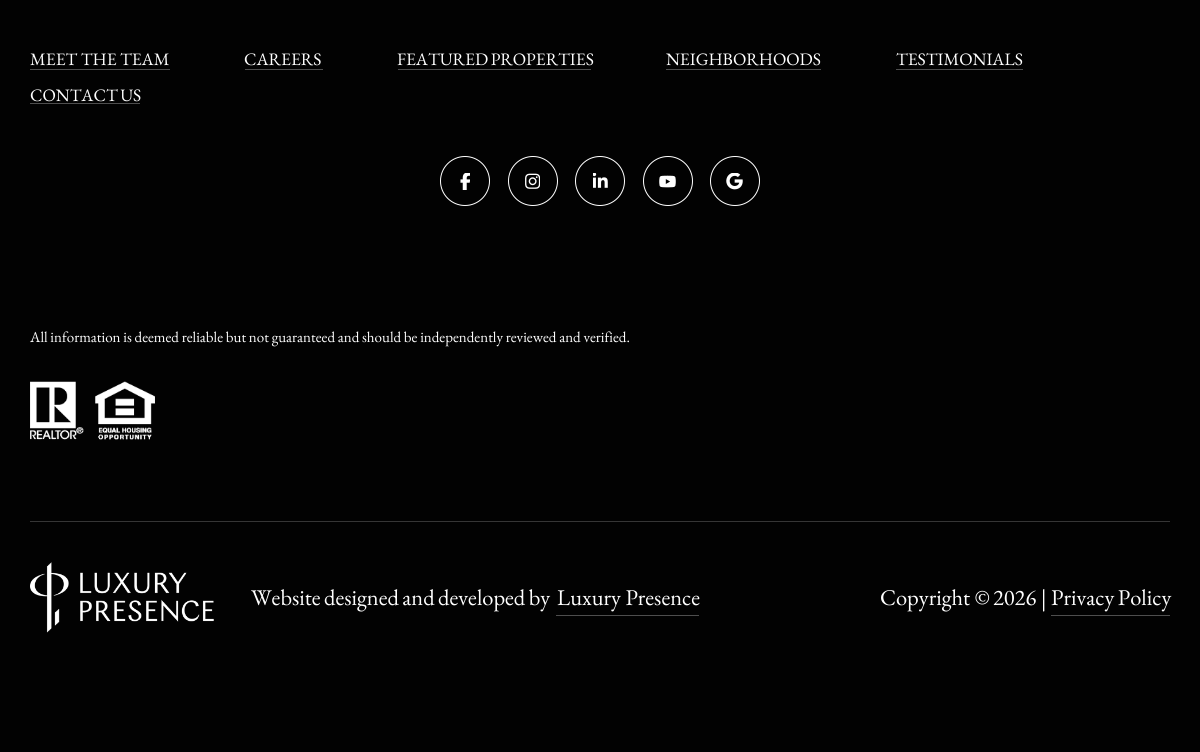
#include <cairo.h>
#include <math.h>
#include <stddef.h>

static cairo_t *c;
static void C(unsigned color){cairo_set_source_rgb(c, (color >> 16) / 255.0, (color >> 8 & 255) / 255.0, (color & 255) / 255.0);}
static void F(const char *family, double size, int italic, int bold){cairo_select_font_face(c, family, italic ? CAIRO_FONT_SLANT_ITALIC : CAIRO_FONT_SLANT_NORMAL,bold ? CAIRO_FONT_WEIGHT_BOLD : CAIRO_FONT_WEIGHT_NORMAL);cairo_set_font_size(c, size);}
static void T(double x, double y, const char *s){cairo_move_to(c, x, y);cairo_show_text(c, s);}
static void L(double x, double y, const char *s, double letter, double word){cairo_move_to(c, x, y);while (*s) {char ch[5] = {0};int n = 0;do ch[n++] = *s++; while ((*s & 0xC0) == 0x80);cairo_show_text(c, ch);cairo_rel_move_to(c, letter + word * (*ch == ' '), 0);}}
static void R(double x, double y, double w, double h){cairo_rectangle(c, x, y, w, h);cairo_fill(c);}
static void I(const char *path, double x, double y, double w, double h){cairo_surface_t *image = cairo_image_surface_create_from_png(path);cairo_save(c);cairo_set_source_surface(c, image, x, y);cairo_rectangle(c, x, y, w, h);cairo_fill(c);cairo_restore(c);cairo_surface_destroy(image);}
int main(void) {
cairo_surface_t *surface = cairo_image_surface_create(CAIRO_FORMAT_RGB24, 1200, 752);
c = cairo_create(surface);
cairo_font_options_t *options = cairo_font_options_create();
cairo_font_options_set_hint_metrics(options, CAIRO_HINT_METRICS_OFF);
cairo_font_options_set_hint_style(options, CAIRO_HINT_STYLE_NONE);
cairo_set_font_options(c, options);
cairo_set_miter_limit(c, 4);
C(0x020202);
cairo_paint(c);
F("EB Garamond",17.5,0,0);
C(0xffffff);
T(30,65,"MEET THE TEAM");
C(0x4e4e4e);
R(30,69,140,1);
C(0xffffff);
T(244,65,"CAREERS");
C(0x4e4e4e);
R(245,69,78,1);
C(0xffffff);
L(397,65,"FEATURED PROPERTIES",0,-1);
C(0x4e4e4e);
R(398,69,193,1);
C(0xffffff);
T(666,65,"NEIGHBORHOODS");
C(0x4e4e4e);
R(666,69,155,1);
C(0xffffff);
T(896,65,"TESTIMONIALS");
C(0x4e4e4e);
R(896,69,127,1);
C(0xffffff);
L(30,101,"CONTACT US",0,-1);
C(0x4e4e4e);
R(30,103,110,1);
cairo_new_path(c);
cairo_arc(c,465,181,24.5,0,2 * M_PI);
C(0xffffff);
cairo_set_line_width(c,1);
cairo_stroke(c);
I("1.png",460,173,10,17);
cairo_arc(c,533,181,24.5,0,2 * M_PI);
cairo_stroke(c);
I("2.png",525,173,15,16);
cairo_arc(c,600,181,24.5,0,2 * M_PI);
cairo_stroke(c);
I("3.png",593,173,15,15);
cairo_arc(c,668,181,24.5,0,2 * M_PI);
cairo_stroke(c);
I("4.png",659,175,17,13);
cairo_arc(c,735,181,24.5,0,2 * M_PI);
cairo_stroke(c);
I("5.png",726,173,17,17);
F("EB Garamond",15,0,0);
L(30,342,"All information is deemed reliable but not guaranteed and should be independently reviewed and verified.",0,-.25);
I("6.png",30,381,125,59);
C(0x353535);
R(30,521,1140,1);
I("7.png",30,562,184,71);
F("EB Garamond",22.5,0,0);
C(0xffffff);
L(251,605,"Website designed and developed by",0,-1);
T(557,605,"Luxury Presence");
C(0x4e4e4e);
R(556,615,143,1);
C(0xffffff);
T(880,605,"Copyright ©");
T(993,605,"2026 |");
L(1051,605,"Privacy Policy",0,-1);
C(0x4e4e4e);
R(1051,615,119,1);
cairo_surface_write_to_png(surface, "o.png");
cairo_font_options_destroy(options);
cairo_destroy(c);
cairo_surface_destroy(surface);
return 0;
}
